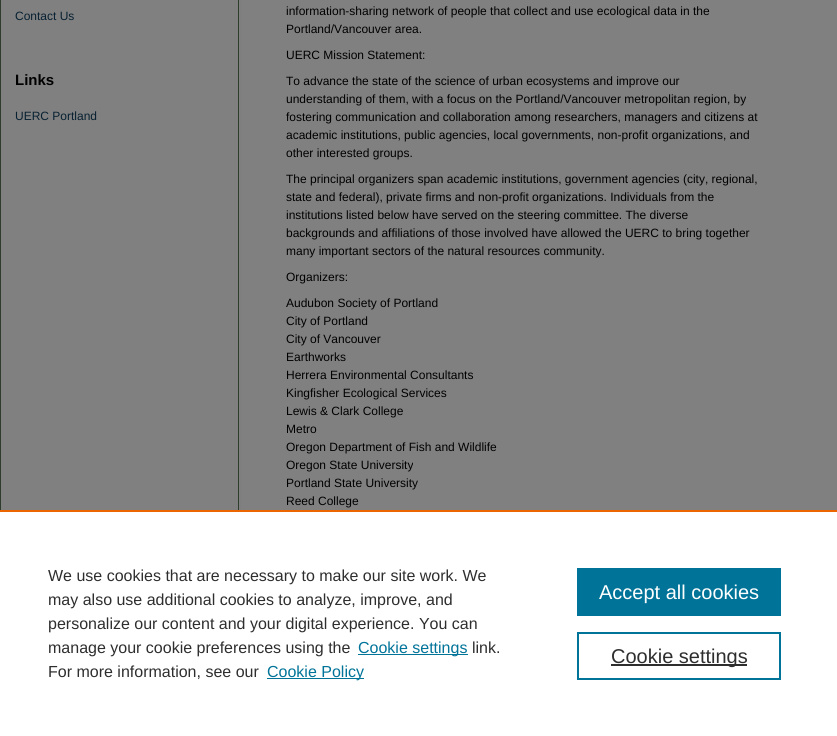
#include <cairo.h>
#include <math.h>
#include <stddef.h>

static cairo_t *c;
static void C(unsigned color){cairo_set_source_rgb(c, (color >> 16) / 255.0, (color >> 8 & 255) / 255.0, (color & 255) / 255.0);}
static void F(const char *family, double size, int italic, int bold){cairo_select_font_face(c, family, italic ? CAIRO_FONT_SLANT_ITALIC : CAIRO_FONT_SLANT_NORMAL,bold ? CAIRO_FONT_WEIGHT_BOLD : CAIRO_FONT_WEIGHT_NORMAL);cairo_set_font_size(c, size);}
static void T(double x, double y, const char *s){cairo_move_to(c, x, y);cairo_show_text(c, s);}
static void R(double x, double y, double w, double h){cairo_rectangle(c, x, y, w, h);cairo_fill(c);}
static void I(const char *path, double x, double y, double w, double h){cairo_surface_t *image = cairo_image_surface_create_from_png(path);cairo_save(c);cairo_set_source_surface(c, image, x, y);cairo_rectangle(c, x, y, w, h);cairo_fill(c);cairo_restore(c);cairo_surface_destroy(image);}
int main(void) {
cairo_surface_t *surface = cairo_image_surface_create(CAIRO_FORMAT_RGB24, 837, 736);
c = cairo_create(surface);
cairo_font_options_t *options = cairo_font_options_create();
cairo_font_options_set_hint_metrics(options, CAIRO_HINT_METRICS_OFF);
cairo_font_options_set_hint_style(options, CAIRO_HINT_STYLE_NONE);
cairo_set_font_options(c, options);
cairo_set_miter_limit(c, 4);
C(0xffffff);
cairo_paint(c);
I("1.png",0,0,837,510);
F("Liberation Sans",12,0,0);
C(0x072031);
T(15,20,"Contact Us");
F("Liberation Sans",15,0,1);
C(0x000000);
T(15,85,"Links");
F("Liberation Sans",12,0,0);
C(0x072031);
T(15,120,"UERC Portland");
C(0x000000);
T(286,15,"information-sharing network of people that collect and use ecological data in the");
T(286,33,"Portland/Vancouver area.");
T(286,59,"UERC Mission Statement:");
T(286,85,"To advance the state of the science of urban ecosystems and improve our");
T(286,103,"understanding of them, with a focus on the Portland/Vancouver metropolitan region, by");
T(286,121,"fostering communication and collaboration among researchers, managers and citizens at");
T(286,139,"academic institutions, public agencies, local governments, non-profit organizations, and");
T(286,157,"other interested groups.");
T(286,183,"The principal organizers span academic institutions, government agencies (city, regional,");
T(286,201,"state and federal), private firms and non-profit organizations. Individuals from the");
T(286,219,"institutions listed below have served on the steering committee. The diverse");
T(286,237,"backgrounds and affiliations of those involved have allowed the UERC to bring together");
T(286,255,"many important sectors of the natural resources community.");
T(286,281,"Organizers:");
T(286,307,"Audubon Society of Portland");
T(286,325,"City of Portland");
T(286,343,"City of Vancouver");
T(286,361,"Earthworks");
T(286,379,"Herrera Environmental Consultants");
T(286,397,"Kingfisher Ecological Services");
T(286,415,"Lewis & Clark College");
T(286,433,"Metro");
T(286,451,"Oregon Department of Fish and Wildlife");
T(286,469,"Oregon State University");
T(286,487,"Portland State University");
T(286,505,"Reed College");
C(0xeb6500);
R(0,510,837,2);
F("Liberation Sans",16,0,0);
C(0x2e2e2e);
T(48,581,"We use cookies that are necessary to make our site work. We");
T(48,605,"may also use additional cookies to analyze, improve, and");
T(48,629,"personalize our content and your digital experience. You can");
T(48,653,"manage your cookie preferences using the");
C(0x007398);
R(358,654,110,1);
T(358,653,"Cookie settings");
C(0x2e2e2e);
T(472,653,"link.");
T(48,677,"For more information, see our");
C(0x007398);
R(267,678,97,1);
T(267,677,"Cookie Policy");
R(577,568,204,48);
F("Liberation Sans",20,0,0);
C(0xffffff);
T(599,599,"Accept all cookies");
cairo_rectangle(c,578,633,202,46);
C(0x007398);
cairo_stroke(c);
C(0x2e2e2e);
R(611,664,136,2);
T(611,663,"Cookie settings");
cairo_surface_write_to_png(surface, "o.png");
cairo_font_options_destroy(options);
cairo_destroy(c);
cairo_surface_destroy(surface);
return 0;
}
